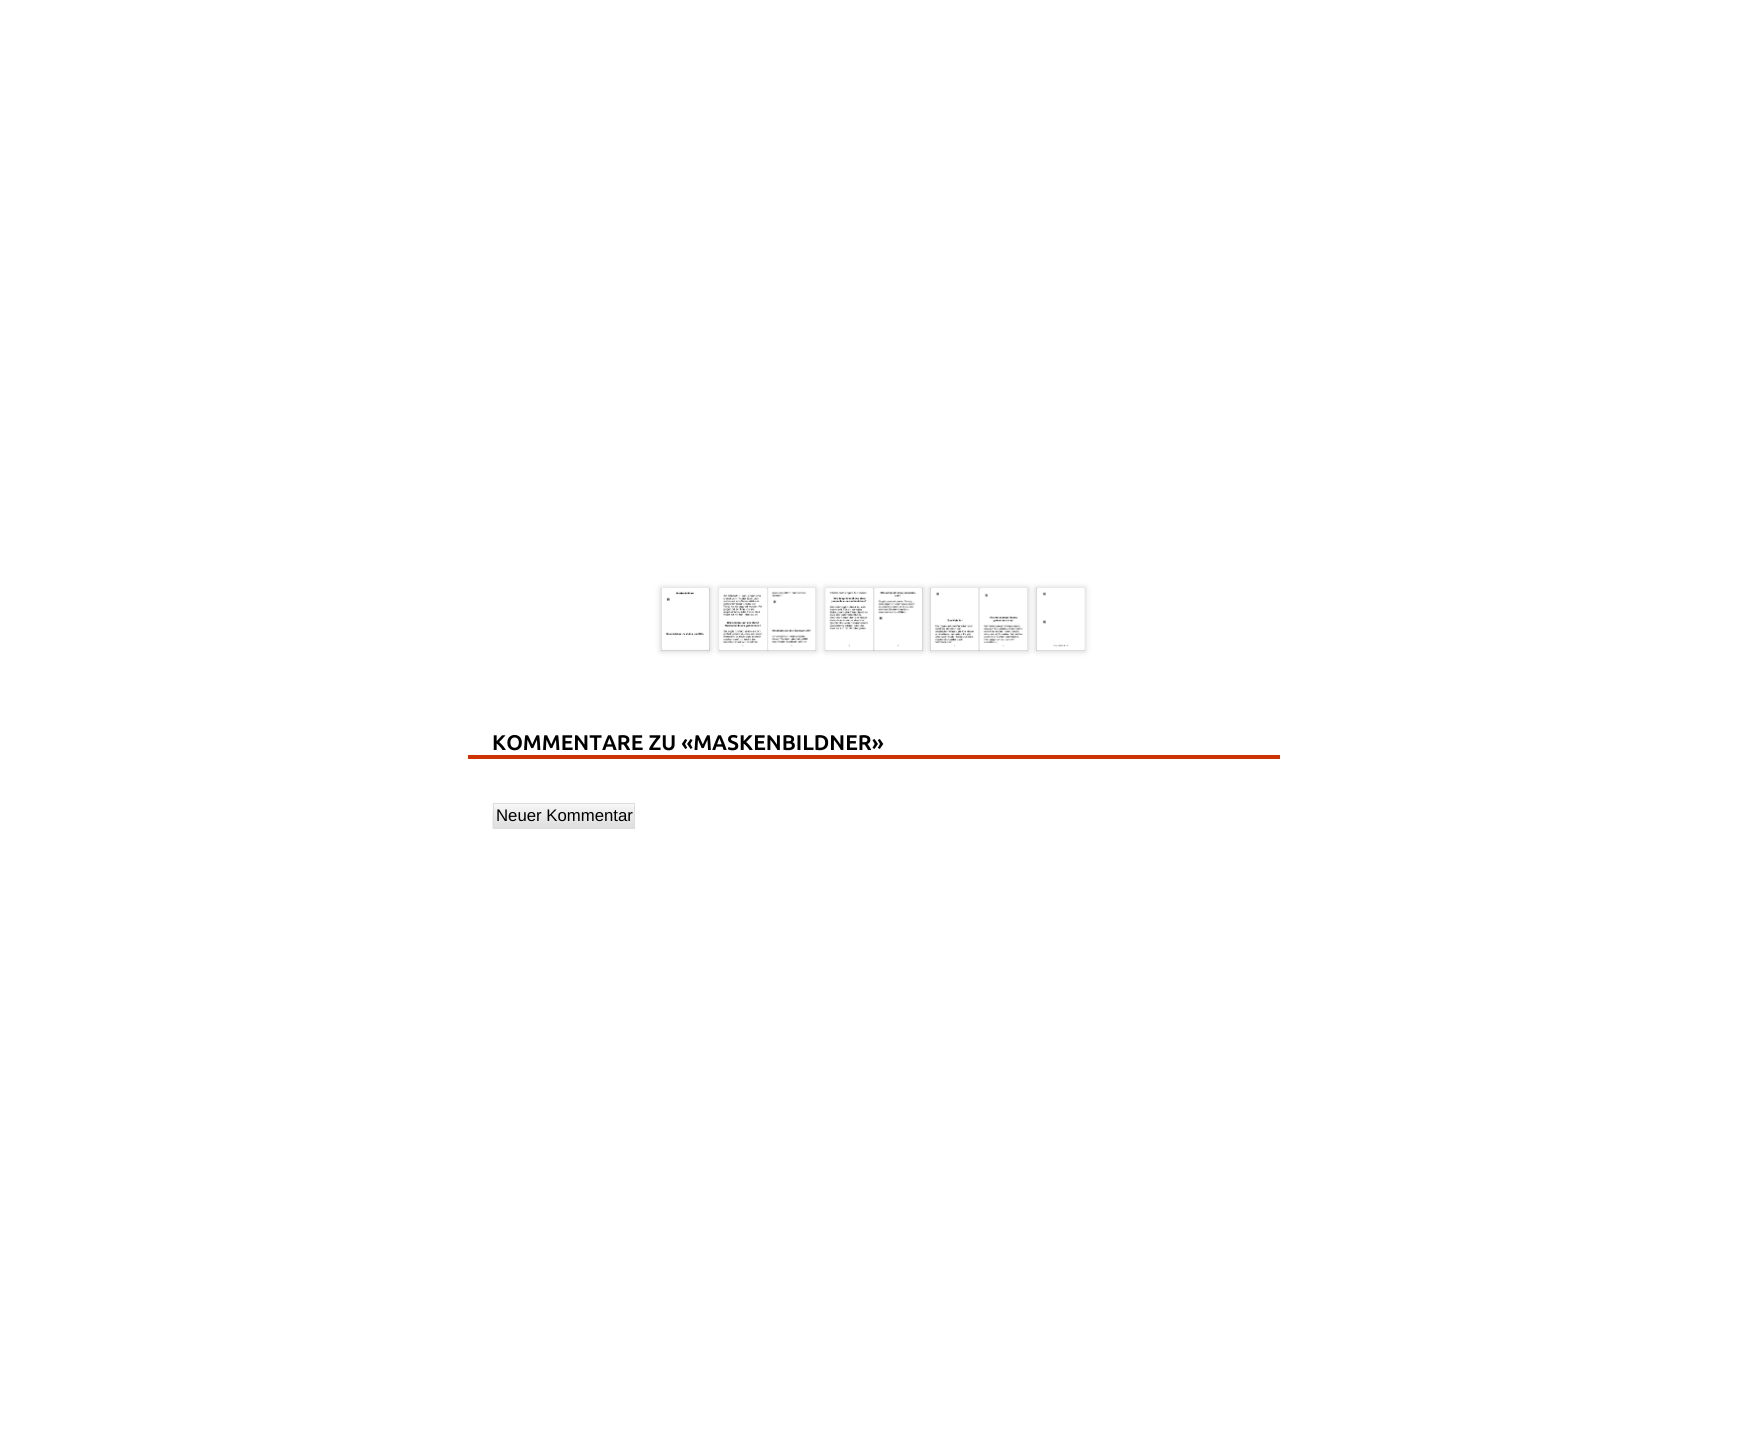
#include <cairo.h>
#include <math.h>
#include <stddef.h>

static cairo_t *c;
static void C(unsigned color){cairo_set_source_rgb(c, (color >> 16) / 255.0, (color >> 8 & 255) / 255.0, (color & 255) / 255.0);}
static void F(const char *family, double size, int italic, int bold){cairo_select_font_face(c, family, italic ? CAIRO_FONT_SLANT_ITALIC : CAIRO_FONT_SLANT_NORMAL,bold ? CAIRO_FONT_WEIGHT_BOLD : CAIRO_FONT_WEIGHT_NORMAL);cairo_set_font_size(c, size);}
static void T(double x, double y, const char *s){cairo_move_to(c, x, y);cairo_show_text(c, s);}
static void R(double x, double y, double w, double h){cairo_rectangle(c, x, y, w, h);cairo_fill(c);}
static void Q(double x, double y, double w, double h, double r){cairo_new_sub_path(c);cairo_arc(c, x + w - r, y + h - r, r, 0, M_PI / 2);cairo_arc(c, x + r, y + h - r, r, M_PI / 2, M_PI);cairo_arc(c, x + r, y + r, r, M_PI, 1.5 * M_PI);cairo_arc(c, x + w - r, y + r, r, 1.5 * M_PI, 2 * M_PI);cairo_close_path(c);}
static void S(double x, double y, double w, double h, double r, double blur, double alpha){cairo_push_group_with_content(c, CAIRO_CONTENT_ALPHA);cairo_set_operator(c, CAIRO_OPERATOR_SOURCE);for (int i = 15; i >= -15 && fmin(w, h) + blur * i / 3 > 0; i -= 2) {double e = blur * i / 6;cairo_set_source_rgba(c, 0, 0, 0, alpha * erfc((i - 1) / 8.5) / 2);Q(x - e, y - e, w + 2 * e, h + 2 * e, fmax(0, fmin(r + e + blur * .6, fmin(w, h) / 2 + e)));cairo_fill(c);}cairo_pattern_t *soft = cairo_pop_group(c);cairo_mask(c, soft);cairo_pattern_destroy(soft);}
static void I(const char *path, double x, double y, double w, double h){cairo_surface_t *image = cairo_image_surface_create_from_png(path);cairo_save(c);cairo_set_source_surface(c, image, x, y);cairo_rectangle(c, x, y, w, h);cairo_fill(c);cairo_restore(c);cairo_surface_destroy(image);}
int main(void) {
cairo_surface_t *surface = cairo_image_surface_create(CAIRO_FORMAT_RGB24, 1746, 1435);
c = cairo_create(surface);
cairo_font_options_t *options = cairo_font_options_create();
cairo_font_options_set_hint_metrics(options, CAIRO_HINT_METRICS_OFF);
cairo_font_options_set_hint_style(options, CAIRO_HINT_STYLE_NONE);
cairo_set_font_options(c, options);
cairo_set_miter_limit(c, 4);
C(0xffffff);
cairo_paint(c);
C(0xcccccc);
S(661,588,49,63,0,3,1);
cairo_rectangle(c,661.3,588.3,48.4,62.4);
C(0xc0c0c0);
cairo_set_line_width(c,.6);
cairo_stroke(c);
I("1.png",661,588,49,63);
cairo_save(c);
cairo_set_fill_rule(c,CAIRO_FILL_RULE_EVEN_ODD);
cairo_new_path(c);
cairo_move_to(c,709,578);
cairo_line_to(c,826,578);
cairo_line_to(c,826,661);
cairo_line_to(c,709,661);
cairo_close_path(c);
cairo_move_to(c,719,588);
cairo_line_to(c,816,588);
cairo_line_to(c,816,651);
cairo_line_to(c,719,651);
cairo_close_path(c);
cairo_clip(c);
C(0xcccccc);
S(719,588,97,63,0,3,1);
cairo_restore(c);
cairo_rectangle(c,719.3,588.3,48.4,62.4);
cairo_stroke(c);
I("2.png",719,588,48,63);
cairo_rectangle(c,768.3,588.3,47.4,62.4);
cairo_stroke(c);
I("3.png",767,588,49,63);
cairo_save(c);
cairo_set_fill_rule(c,CAIRO_FILL_RULE_EVEN_ODD);
cairo_new_path(c);
cairo_move_to(c,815,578);
cairo_line_to(c,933,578);
cairo_line_to(c,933,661);
cairo_line_to(c,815,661);
cairo_close_path(c);
cairo_move_to(c,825,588);
cairo_line_to(c,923,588);
cairo_line_to(c,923,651);
cairo_line_to(c,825,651);
cairo_close_path(c);
cairo_clip(c);
C(0xcccccc);
S(825,588,98,63,0,3,1);
cairo_restore(c);
cairo_rectangle(c,825.3,588.3,48.4,62.4);
cairo_stroke(c);
I("4.png",825,588,48,63);
cairo_rectangle(c,874.3,588.3,48.4,62.4);
cairo_stroke(c);
I("5.png",873,588,49,63);
cairo_save(c);
cairo_set_fill_rule(c,CAIRO_FILL_RULE_EVEN_ODD);
cairo_new_path(c);
cairo_move_to(c,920,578);
cairo_line_to(c,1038,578);
cairo_line_to(c,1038,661);
cairo_line_to(c,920,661);
cairo_close_path(c);
cairo_move_to(c,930,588);
cairo_line_to(c,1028,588);
cairo_line_to(c,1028,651);
cairo_line_to(c,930,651);
cairo_close_path(c);
cairo_clip(c);
C(0xcccccc);
S(930,588,98,63,0,3,1);
cairo_restore(c);
cairo_rectangle(c,930.3,588.3,48.4,62.4);
cairo_stroke(c);
I("6.png",931,588,48,63);
cairo_rectangle(c,979.3,588.3,48.4,62.4);
cairo_stroke(c);
I("7.png",979,588,49,63);
cairo_save(c);
cairo_set_fill_rule(c,CAIRO_FILL_RULE_EVEN_ODD);
cairo_new_path(c);
cairo_move_to(c,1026,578);
cairo_line_to(c,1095,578);
cairo_line_to(c,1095,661);
cairo_line_to(c,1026,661);
cairo_close_path(c);
cairo_move_to(c,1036,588);
cairo_line_to(c,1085,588);
cairo_line_to(c,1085,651);
cairo_line_to(c,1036,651);
cairo_close_path(c);
cairo_clip(c);
C(0xcccccc);
S(1036,588,49,63,0,3,1);
cairo_restore(c);
cairo_rectangle(c,1036.3,588.3,48.4,62.4);
cairo_stroke(c);
I("8.png",1037,588,48,63);
F("Ubuntu",21.25,0,1);
C(0x000000);
T(492,750,"KOMMENTARE ZU «MASKENBILDNER»");
C(0xcc3300);
R(468,755,812,4);
I("9.png",492,803,142,26);
cairo_rectangle(c,493.5,803.5,141,25);
C(0xdddddd);
cairo_set_line_width(c,1);
cairo_stroke(c);
F("Liberation Sans",16.75,0,0);
C(0x000000);
T(496,821,"Neuer Kommentar");
cairo_surface_write_to_png(surface, "o.png");
cairo_font_options_destroy(options);
cairo_destroy(c);
cairo_surface_destroy(surface);
return 0;
}
